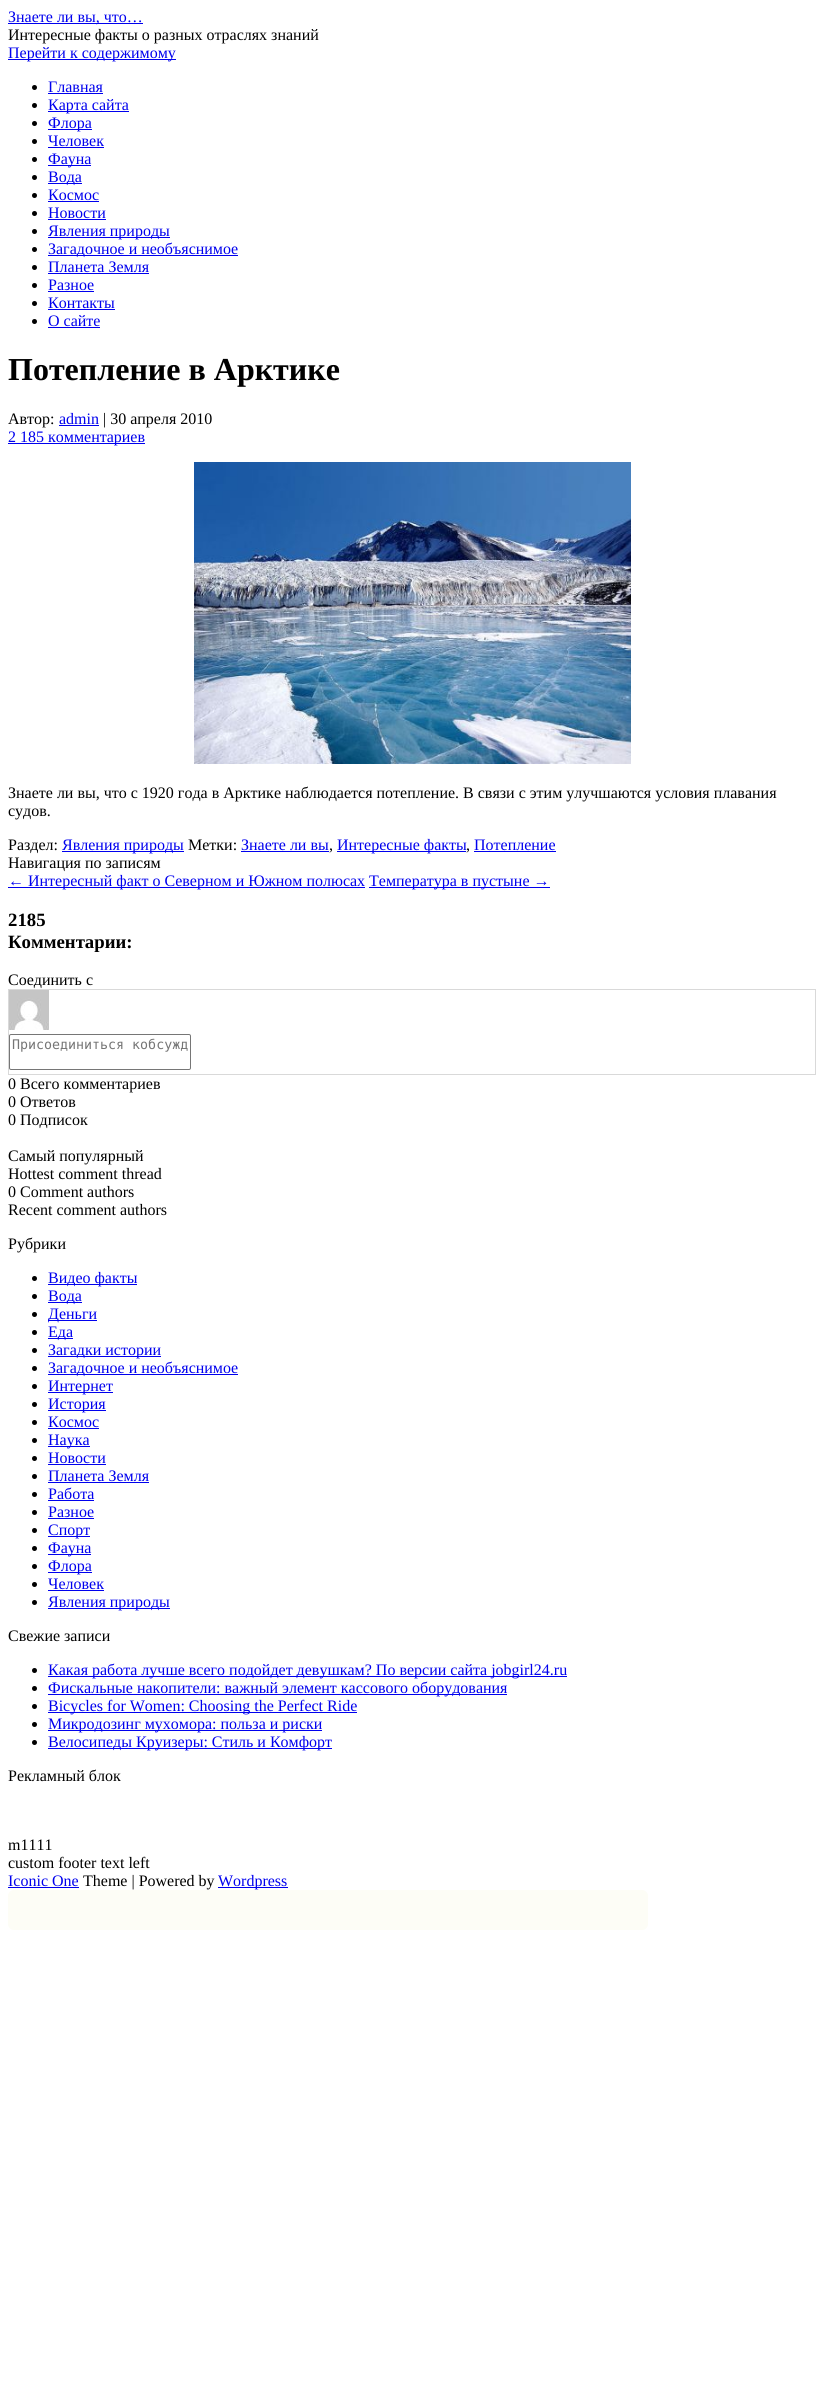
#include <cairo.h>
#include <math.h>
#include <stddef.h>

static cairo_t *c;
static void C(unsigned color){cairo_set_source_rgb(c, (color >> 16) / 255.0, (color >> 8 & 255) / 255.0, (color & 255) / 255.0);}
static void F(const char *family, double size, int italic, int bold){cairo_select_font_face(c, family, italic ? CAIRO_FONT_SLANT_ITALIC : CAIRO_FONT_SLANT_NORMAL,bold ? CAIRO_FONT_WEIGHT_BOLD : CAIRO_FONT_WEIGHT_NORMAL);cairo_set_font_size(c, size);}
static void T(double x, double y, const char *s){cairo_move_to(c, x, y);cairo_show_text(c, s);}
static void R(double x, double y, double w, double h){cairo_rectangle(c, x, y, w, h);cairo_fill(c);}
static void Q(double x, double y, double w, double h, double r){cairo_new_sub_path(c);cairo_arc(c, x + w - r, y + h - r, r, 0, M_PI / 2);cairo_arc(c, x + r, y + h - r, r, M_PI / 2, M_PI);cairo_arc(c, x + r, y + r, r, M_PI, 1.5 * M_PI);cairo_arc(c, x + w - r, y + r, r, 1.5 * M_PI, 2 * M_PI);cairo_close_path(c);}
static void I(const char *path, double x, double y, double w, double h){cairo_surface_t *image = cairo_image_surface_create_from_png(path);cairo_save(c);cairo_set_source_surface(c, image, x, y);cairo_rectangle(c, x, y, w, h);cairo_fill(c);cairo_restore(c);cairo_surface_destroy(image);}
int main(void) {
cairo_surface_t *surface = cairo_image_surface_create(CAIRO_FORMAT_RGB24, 824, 2396);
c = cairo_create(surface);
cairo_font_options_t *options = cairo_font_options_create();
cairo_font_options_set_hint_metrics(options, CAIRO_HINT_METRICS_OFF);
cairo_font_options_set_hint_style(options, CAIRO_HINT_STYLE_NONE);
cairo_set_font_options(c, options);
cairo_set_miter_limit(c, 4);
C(0xffffff);
cairo_paint(c);
C(0x0000ee);
R(8,23,135,1);
F("Liberation Serif",16,0,0);
T(8,22,"Знаете ли вы, что…");
C(0x000000);
T(8,40,"Интересные факты о разных отраслях знаний");
C(0x0000ee);
R(8,59,168,1);
T(8,58,"Перейти к содержимому");
C(0x000000);
cairo_new_path(c);
cairo_arc(c,34.5,87.5,2.5,0,2 * M_PI);
cairo_fill(c);
C(0x0000ee);
T(48,92,"Главная");
R(48,93,55,1);
C(0x000000);
cairo_new_path(c);
cairo_arc(c,34.5,105.5,2.5,0,2 * M_PI);
cairo_fill(c);
C(0x0000ee);
R(48,111,81,1);
T(48,110,"Карта сайта");
C(0x000000);
cairo_new_path(c);
cairo_arc(c,34.5,123.5,2.5,0,2 * M_PI);
cairo_fill(c);
C(0x0000ee);
R(48,129,44,1);
T(48,128,"Флора");
C(0x000000);
cairo_new_path(c);
cairo_arc(c,34.5,141.5,2.5,0,2 * M_PI);
cairo_fill(c);
C(0x0000ee);
T(48,146,"Человек");
R(48,147,56,1);
C(0x000000);
cairo_new_path(c);
cairo_arc(c,34.5,159.5,2.5,0,2 * M_PI);
cairo_fill(c);
C(0x0000ee);
R(48,165,43,1);
T(48,164,"Фауна");
C(0x000000);
cairo_new_path(c);
cairo_arc(c,34.5,177.5,2.5,0,2 * M_PI);
cairo_fill(c);
C(0x0000ee);
R(48,183,34,1);
T(48,182,"Вода");
C(0x000000);
cairo_new_path(c);
cairo_arc(c,34.5,195.5,2.5,0,2 * M_PI);
cairo_fill(c);
C(0x0000ee);
T(48,200,"Космос");
R(48,201,51,1);
C(0x000000);
cairo_new_path(c);
cairo_arc(c,34.5,213.5,2.5,0,2 * M_PI);
cairo_fill(c);
C(0x0000ee);
T(48,218,"Новости");
R(48,219,58,1);
C(0x000000);
cairo_new_path(c);
cairo_arc(c,34.5,231.5,2.5,0,2 * M_PI);
cairo_fill(c);
C(0x0000ee);
R(48,237,122,1);
T(48,236,"Явления природы");
C(0x000000);
cairo_new_path(c);
cairo_arc(c,34.5,249.5,2.5,0,2 * M_PI);
cairo_fill(c);
C(0x0000ee);
R(48,255,190,1);
T(48,254,"Загадочное и необъяснимое");
C(0x000000);
cairo_new_path(c);
cairo_arc(c,34.5,267.5,2.5,0,2 * M_PI);
cairo_fill(c);
C(0x0000ee);
T(48,272,"Планета Земля");
R(48,273,101,1);
C(0x000000);
cairo_new_path(c);
cairo_arc(c,34.5,285.5,2.5,0,2 * M_PI);
cairo_fill(c);
C(0x0000ee);
T(48,290,"Разное");
R(48,291,46,1);
C(0x000000);
cairo_new_path(c);
cairo_arc(c,34.5,303.5,2.5,0,2 * M_PI);
cairo_fill(c);
C(0x0000ee);
T(48,308,"Контакты");
R(48,309,67,1);
C(0x000000);
cairo_new_path(c);
cairo_arc(c,34.5,321.5,2.5,0,2 * M_PI);
cairo_fill(c);
C(0x0000ee);
T(48,326,"О сайте");
R(48,327,52,1);
F("Liberation Serif",32,0,1);
C(0x000000);
T(8,380,"Потепление в Арктике");
F("Liberation Serif",16,0,0);
T(8,424,"Автор:");
C(0x0000ee);
T(59,424,"admin");
R(59,425,40,1);
C(0x000000);
T(103,424,"| 30 апреля 2010");
C(0x0000ee);
R(8,443,137,1);
T(8,442,"2 185 комментариев");
I("1.png",194,462,437,302);
C(0x000000);
T(8,798,"Знаете ли вы, что с 1920 года в Арктике наблюдается потепление. В связи с этим улучшаются условия плавания");
T(8,816,"судов.");
T(8,850,"Раздел:");
C(0x0000ee);
R(62,851,122,1);
T(62,850,"Явления природы");
C(0x000000);
T(188,850,"Метки:");
C(0x0000ee);
T(241,850,"Знаете ли вы");
C(0x000000);
T(329,850,",");
C(0x0000ee);
R(241,851,88,1);
R(337,851,129,1);
T(337,850,"Интересные факты");
C(0x000000);
T(466,850,",");
C(0x0000ee);
R(474,851,82,1);
T(474,850,"Потепление");
C(0x000000);
T(8,868,"Навигация по записям");
C(0x0000ee);
R(8,887,357,1);
T(8,886,"← Интересный факт о Северном и Южном полюсах");
R(369,887,181,1);
T(369,886,"Температура в пустыне →");
F("Liberation Serif",18.75,0,1);
C(0x000000);
T(8,926,"2185");
T(8,948,"Комментарии:");
F("Liberation Serif",16,0,0);
T(8,985,"Соединить с");
cairo_rectangle(c,8.5,989.5,807,85);
C(0xd9d9d9);
cairo_set_line_width(c,1);
cairo_stroke(c);
I("2.png",9,990,40,40);
Q(9.5,1034.5,181,35,1.5);
C(0x767676);
cairo_stroke(c);
F("DejaVu Sans Mono",13.3,0,0);
C(0x757575);
T(12,1049,"Присоединиться кобсужд");
F("Liberation Serif",16,0,0);
C(0x000000);
T(8,1089,"0 Всего комментариев");
T(8,1107,"0 Ответов");
T(8,1125,"0 Подписок");
T(8,1161,"Самый популярный");
T(8,1179,"Hottest comment thread");
T(8,1197,"0 Comment authors");
T(8,1215,"Recent comment authors");
T(8,1249,"Рубрики");
cairo_new_path(c);
cairo_arc(c,34.5,1278.5,2.5,0,2 * M_PI);
cairo_fill(c);
C(0x0000ee);
R(48,1284,89,1);
T(48,1283,"Видео факты");
C(0x000000);
cairo_new_path(c);
cairo_arc(c,34.5,1296.5,2.5,0,2 * M_PI);
cairo_fill(c);
C(0x0000ee);
R(48,1302,34,1);
T(48,1301,"Вода");
C(0x000000);
cairo_new_path(c);
cairo_arc(c,34.5,1314.5,2.5,0,2 * M_PI);
cairo_fill(c);
C(0x0000ee);
R(48,1320,49,1);
T(48,1319,"Деньги");
C(0x000000);
cairo_new_path(c);
cairo_arc(c,34.5,1332.5,2.5,0,2 * M_PI);
cairo_fill(c);
C(0x0000ee);
R(48,1338,25,1);
T(48,1337,"Еда");
C(0x000000);
cairo_new_path(c);
cairo_arc(c,34.5,1350.5,2.5,0,2 * M_PI);
cairo_fill(c);
C(0x0000ee);
R(48,1356,113,1);
T(48,1355,"Загадки истории");
C(0x000000);
cairo_new_path(c);
cairo_arc(c,34.5,1368.5,2.5,0,2 * M_PI);
cairo_fill(c);
C(0x0000ee);
R(48,1374,190,1);
T(48,1373,"Загадочное и необъяснимое");
C(0x000000);
cairo_new_path(c);
cairo_arc(c,34.5,1386.5,2.5,0,2 * M_PI);
cairo_fill(c);
C(0x0000ee);
R(48,1392,65,1);
T(48,1391,"Интернет");
C(0x000000);
cairo_new_path(c);
cairo_arc(c,34.5,1404.5,2.5,0,2 * M_PI);
cairo_fill(c);
C(0x0000ee);
R(48,1410,58,1);
T(48,1409,"История");
C(0x000000);
cairo_new_path(c);
cairo_arc(c,34.5,1422.5,2.5,0,2 * M_PI);
cairo_fill(c);
C(0x0000ee);
T(48,1427,"Космос");
R(48,1428,51,1);
C(0x000000);
cairo_new_path(c);
cairo_arc(c,34.5,1440.5,2.5,0,2 * M_PI);
cairo_fill(c);
C(0x0000ee);
R(48,1446,42,1);
T(48,1445,"Наука");
C(0x000000);
cairo_new_path(c);
cairo_arc(c,34.5,1458.5,2.5,0,2 * M_PI);
cairo_fill(c);
C(0x0000ee);
T(48,1463,"Новости");
R(48,1464,58,1);
C(0x000000);
cairo_new_path(c);
cairo_arc(c,34.5,1476.5,2.5,0,2 * M_PI);
cairo_fill(c);
C(0x0000ee);
T(48,1481,"Планета Земля");
R(48,1482,101,1);
C(0x000000);
cairo_new_path(c);
cairo_arc(c,34.5,1494.5,2.5,0,2 * M_PI);
cairo_fill(c);
C(0x0000ee);
T(48,1499,"Работа");
R(48,1500,46,1);
C(0x000000);
cairo_new_path(c);
cairo_arc(c,34.5,1512.5,2.5,0,2 * M_PI);
cairo_fill(c);
C(0x0000ee);
T(48,1517,"Разное");
R(48,1518,46,1);
C(0x000000);
cairo_new_path(c);
cairo_arc(c,34.5,1530.5,2.5,0,2 * M_PI);
cairo_fill(c);
C(0x0000ee);
R(48,1536,42,1);
T(48,1535,"Спорт");
C(0x000000);
cairo_new_path(c);
cairo_arc(c,34.5,1548.5,2.5,0,2 * M_PI);
cairo_fill(c);
C(0x0000ee);
R(48,1554,43,1);
T(48,1553,"Фауна");
C(0x000000);
cairo_new_path(c);
cairo_arc(c,34.5,1566.5,2.5,0,2 * M_PI);
cairo_fill(c);
C(0x0000ee);
R(48,1572,44,1);
T(48,1571,"Флора");
C(0x000000);
cairo_new_path(c);
cairo_arc(c,34.5,1584.5,2.5,0,2 * M_PI);
cairo_fill(c);
C(0x0000ee);
T(48,1589,"Человек");
R(48,1590,56,1);
C(0x000000);
cairo_new_path(c);
cairo_arc(c,34.5,1602.5,2.5,0,2 * M_PI);
cairo_fill(c);
C(0x0000ee);
R(48,1608,122,1);
T(48,1607,"Явления природы");
C(0x000000);
T(8,1641,"Свежие записи");
cairo_new_path(c);
cairo_arc(c,34.5,1670.5,2.5,0,2 * M_PI);
cairo_fill(c);
C(0x0000ee);
R(48,1676,519,1);
T(48,1675,"Какая работа лучше всего подойдет девушкам? По версии сайта jobgirl24.ru");
C(0x000000);
cairo_new_path(c);
cairo_arc(c,34.5,1688.5,2.5,0,2 * M_PI);
cairo_fill(c);
C(0x0000ee);
R(48,1694,459,1);
T(48,1693,"Фискальные накопители: важный элемент кассового оборудования");
C(0x000000);
cairo_new_path(c);
cairo_arc(c,34.5,1706.5,2.5,0,2 * M_PI);
cairo_fill(c);
C(0x0000ee);
R(48,1712,309,1);
T(48,1711,"Bicycles for Women: Choosing the Perfect Ride");
C(0x000000);
cairo_new_path(c);
cairo_arc(c,34.5,1724.5,2.5,0,2 * M_PI);
cairo_fill(c);
C(0x0000ee);
R(48,1730,274,1);
T(48,1729,"Микродозинг мухомора: польза и риски");
C(0x000000);
cairo_new_path(c);
cairo_arc(c,34.5,1742.5,2.5,0,2 * M_PI);
cairo_fill(c);
C(0x0000ee);
R(48,1748,284,1);
T(48,1747,"Велосипеды Круизеры: Стиль и Комфорт");
C(0x000000);
T(8,1781,"Рекламный блок");
T(8,1850,"m1111");
T(8,1868,"custom footer text left");
C(0x0000ee);
T(8,1886,"Iconic One");
R(8,1887,71,1);
C(0x000000);
T(83,1886,"Theme | Powered by");
C(0x0000ee);
R(218,1887,70,1);
T(218,1886,"Wordpress");
C(0xfdfdf6);
Q(8,1890,640,40,6);
cairo_fill(c);
cairo_surface_write_to_png(surface, "o.png");
cairo_font_options_destroy(options);
cairo_destroy(c);
cairo_surface_destroy(surface);
return 0;
}
